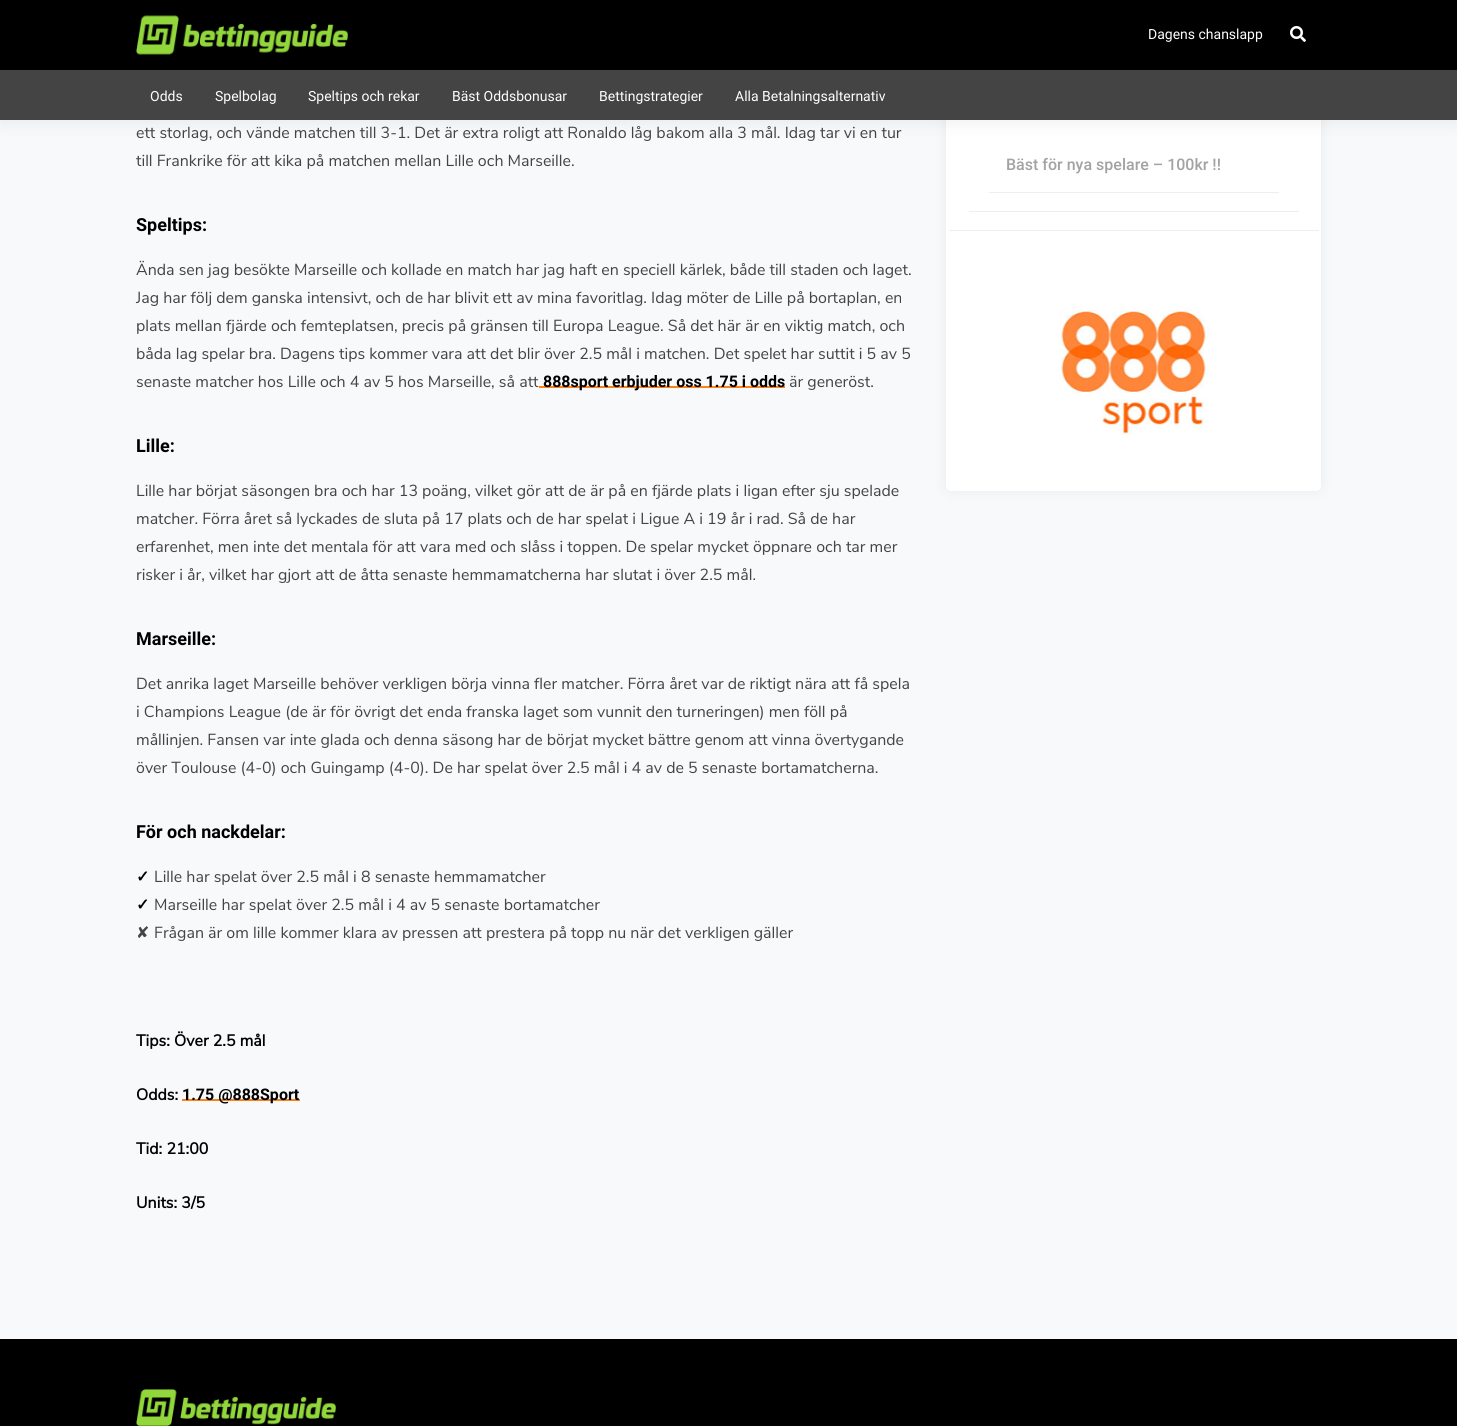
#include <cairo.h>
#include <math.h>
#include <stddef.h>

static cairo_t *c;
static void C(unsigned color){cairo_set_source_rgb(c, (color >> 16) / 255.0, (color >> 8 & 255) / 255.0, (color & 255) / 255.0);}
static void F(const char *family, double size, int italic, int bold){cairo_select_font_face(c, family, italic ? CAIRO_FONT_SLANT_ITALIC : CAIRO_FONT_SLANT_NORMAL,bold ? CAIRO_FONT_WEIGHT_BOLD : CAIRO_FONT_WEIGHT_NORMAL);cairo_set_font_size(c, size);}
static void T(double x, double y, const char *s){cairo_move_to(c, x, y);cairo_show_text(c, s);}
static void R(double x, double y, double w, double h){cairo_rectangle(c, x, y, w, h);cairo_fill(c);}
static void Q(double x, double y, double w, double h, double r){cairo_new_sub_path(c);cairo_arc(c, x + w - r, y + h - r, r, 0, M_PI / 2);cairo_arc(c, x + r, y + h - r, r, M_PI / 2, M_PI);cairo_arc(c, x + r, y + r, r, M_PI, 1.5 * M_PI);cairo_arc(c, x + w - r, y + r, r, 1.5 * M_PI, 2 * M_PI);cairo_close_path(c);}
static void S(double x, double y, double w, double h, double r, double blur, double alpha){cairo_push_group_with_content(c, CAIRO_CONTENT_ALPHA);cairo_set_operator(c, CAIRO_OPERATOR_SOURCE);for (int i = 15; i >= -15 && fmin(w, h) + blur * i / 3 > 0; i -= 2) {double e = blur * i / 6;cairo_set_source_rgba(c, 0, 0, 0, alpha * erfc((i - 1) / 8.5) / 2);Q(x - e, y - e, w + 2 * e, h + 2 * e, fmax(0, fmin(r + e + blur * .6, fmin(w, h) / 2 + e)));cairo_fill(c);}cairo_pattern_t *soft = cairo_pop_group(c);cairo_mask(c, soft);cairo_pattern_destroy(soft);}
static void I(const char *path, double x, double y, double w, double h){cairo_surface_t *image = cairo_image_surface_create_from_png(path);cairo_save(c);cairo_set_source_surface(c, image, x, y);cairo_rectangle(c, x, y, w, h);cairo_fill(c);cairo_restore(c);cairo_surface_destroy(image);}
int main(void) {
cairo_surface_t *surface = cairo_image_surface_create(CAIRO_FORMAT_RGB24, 1457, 1426);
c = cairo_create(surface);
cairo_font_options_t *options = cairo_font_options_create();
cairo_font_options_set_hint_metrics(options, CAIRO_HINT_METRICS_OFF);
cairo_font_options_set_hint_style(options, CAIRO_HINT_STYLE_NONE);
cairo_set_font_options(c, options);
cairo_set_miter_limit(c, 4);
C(0xf8f9fa);
cairo_paint(c);
C(0x000000);
S(946,104,375,387,5,7.5,.06);
C(0xffffff);
Q(946,104,375,387,5);
cairo_fill(c);
Q(946,104,375,127,5);
cairo_fill(c);
C(0x000000);
S(0,4,1457,120,0,8,.06);
C(0x000000);
R(0,0,1457,70);
I("1.png",136,15,212,40);
F("Roboto",14,0,0);
C(0xffffff);
T(1148,39,"Dagens chanslapp");
I("2.png",1290,26,16,16);
C(0x444444);
R(0,70,1457,50);
C(0xffffff);
T(150,101,"Odds");
T(215,101,"Spelbolag");
T(308,101,"Speltips och rekar");
T(452,101,"Bäst Oddsbonusar");
T(599,101,"Bettingstrategier");
T(735,101,"Alla Betalningsalternativ");
F("Nunito Sans",16,0,0);
C(0x444444);
T(136,138,"ett storlag, och vände matchen till 3-1. Det är extra roligt att Ronaldo låg bakom alla 3 mål. Idag tar vi en tur");
T(136,166,"till Frankrike för att kika på matchen mellan Lille och Marseille.");
F("Roboto",18,0,1);
C(0x000000);
T(136,231,"Speltips:");
F("Nunito Sans",16,0,0);
C(0x444444);
T(136,275,"Ända sen jag besökte Marseille och kollade en match har jag haft en speciell kärlek, både till staden och laget.");
T(136,303,"Jag har följ dem ganska intensivt, och de har blivit ett av mina favoritlag. Idag möter de Lille på bortaplan, en");
T(136,331,"plats mellan fjärde och femteplatsen, precis på gränsen till Europa League. Så det här är en viktig match, och");
T(136,359,"båda lag spelar bra. Dagens tips kommer vara att det blir över 2.5 mål i matchen. Det spelet har suttit i 5 av 5");
T(136,387,"senaste matcher hos Lille och 4 av 5 hos Marseille, så att");
C(0xff8112);
R(539,386,246,2);
F("Roboto",16,0,1);
C(0x000000);
T(543,387,"888sport erbjuder oss 1.75 i odds");
F("Nunito Sans",16,0,0);
C(0x444444);
T(789,387,"är generöst.");
F("Roboto",18,0,1);
C(0x000000);
T(136,452,"Lille:");
F("Nunito Sans",16,0,0);
C(0x444444);
T(136,496,"Lille har börjat säsongen bra och har 13 poäng, vilket gör att de är på en fjärde plats i ligan efter sju spelade");
T(136,524,"matcher. Förra året så lyckades de sluta på 17 plats och de har spelat i Ligue A i 19 år i rad. Så de har");
T(136,552,"erfarenhet, men inte det mentala för att vara med och slåss i toppen. De spelar mycket öppnare och tar mer");
T(136,580,"risker i år, vilket har gjort att de åtta senaste hemmamatcherna har slutat i över 2.5 mål.");
F("Roboto",18,0,1);
C(0x000000);
T(136,645,"Marseille:");
F("Nunito Sans",16,0,0);
C(0x444444);
T(136,689,"Det anrika laget Marseille behöver verkligen börja vinna fler matcher. Förra året var de riktigt nära att få spela");
T(136,717,"i Champions League (de är för övrigt det enda franska laget som vunnit den turneringen) men föll på");
T(136,745,"mållinjen. Fansen var inte glada och denna säsong har de börjat mycket bättre genom att vinna övertygande");
T(136,773,"över Toulouse (4-0) och Guingamp (4-0). De har spelat över 2.5 mål i 4 av de 5 senaste bortamatcherna.");
F("Roboto",18,0,1);
C(0x000000);
T(136,838,"För och nackdelar:");
F("DejaVu Sans",16,0,1);
T(136,882,"✓");
F("Nunito Sans",16,0,0);
C(0x444444);
T(154,882,"Lille har spelat över 2.5 mål i 8 senaste hemmamatcher");
F("DejaVu Sans",16,0,1);
C(0x000000);
T(136,910,"✓");
F("Nunito Sans",16,0,0);
C(0x444444);
T(154,910,"Marseille har spelat över 2.5 mål i 4 av 5 senaste bortamatcher");
F("DejaVu Sans",16,0,0);
T(136,938,"✘");
F("Nunito Sans",16,0,0);
T(154,938,"Frågan är om lille kommer klara av pressen att prestera på topp nu när det verkligen gäller");
F("Nunito Sans",16,0,1);
C(0x000000);
T(136,1046,"Tips: Över 2.5 mål");
T(136,1100,"Odds:");
C(0xff8112);
R(182,1099,118,2);
F("Roboto",16,0,1);
C(0x000000);
T(182,1100,"1.75 @888Sport");
F("Nunito Sans",16,0,1);
T(136,1154,"Tid: 21:00");
T(136,1208,"Units: 3/5");
C(0xeeeeee);
R(949,230,370,1);
R(969,211,330,1);
R(989,192,290,1);
F("Roboto Medium",16,0,0);
C(0xa3a3a3);
T(1006,170,"Bäst för nya spelare – 100kr !!");
I("3.png",1060,309,150,126);
C(0x000000);
R(0,1339,1457,87);
I("4.png",136,1389,200,37);
cairo_surface_write_to_png(surface, "o.png");
cairo_font_options_destroy(options);
cairo_destroy(c);
cairo_surface_destroy(surface);
return 0;
}
